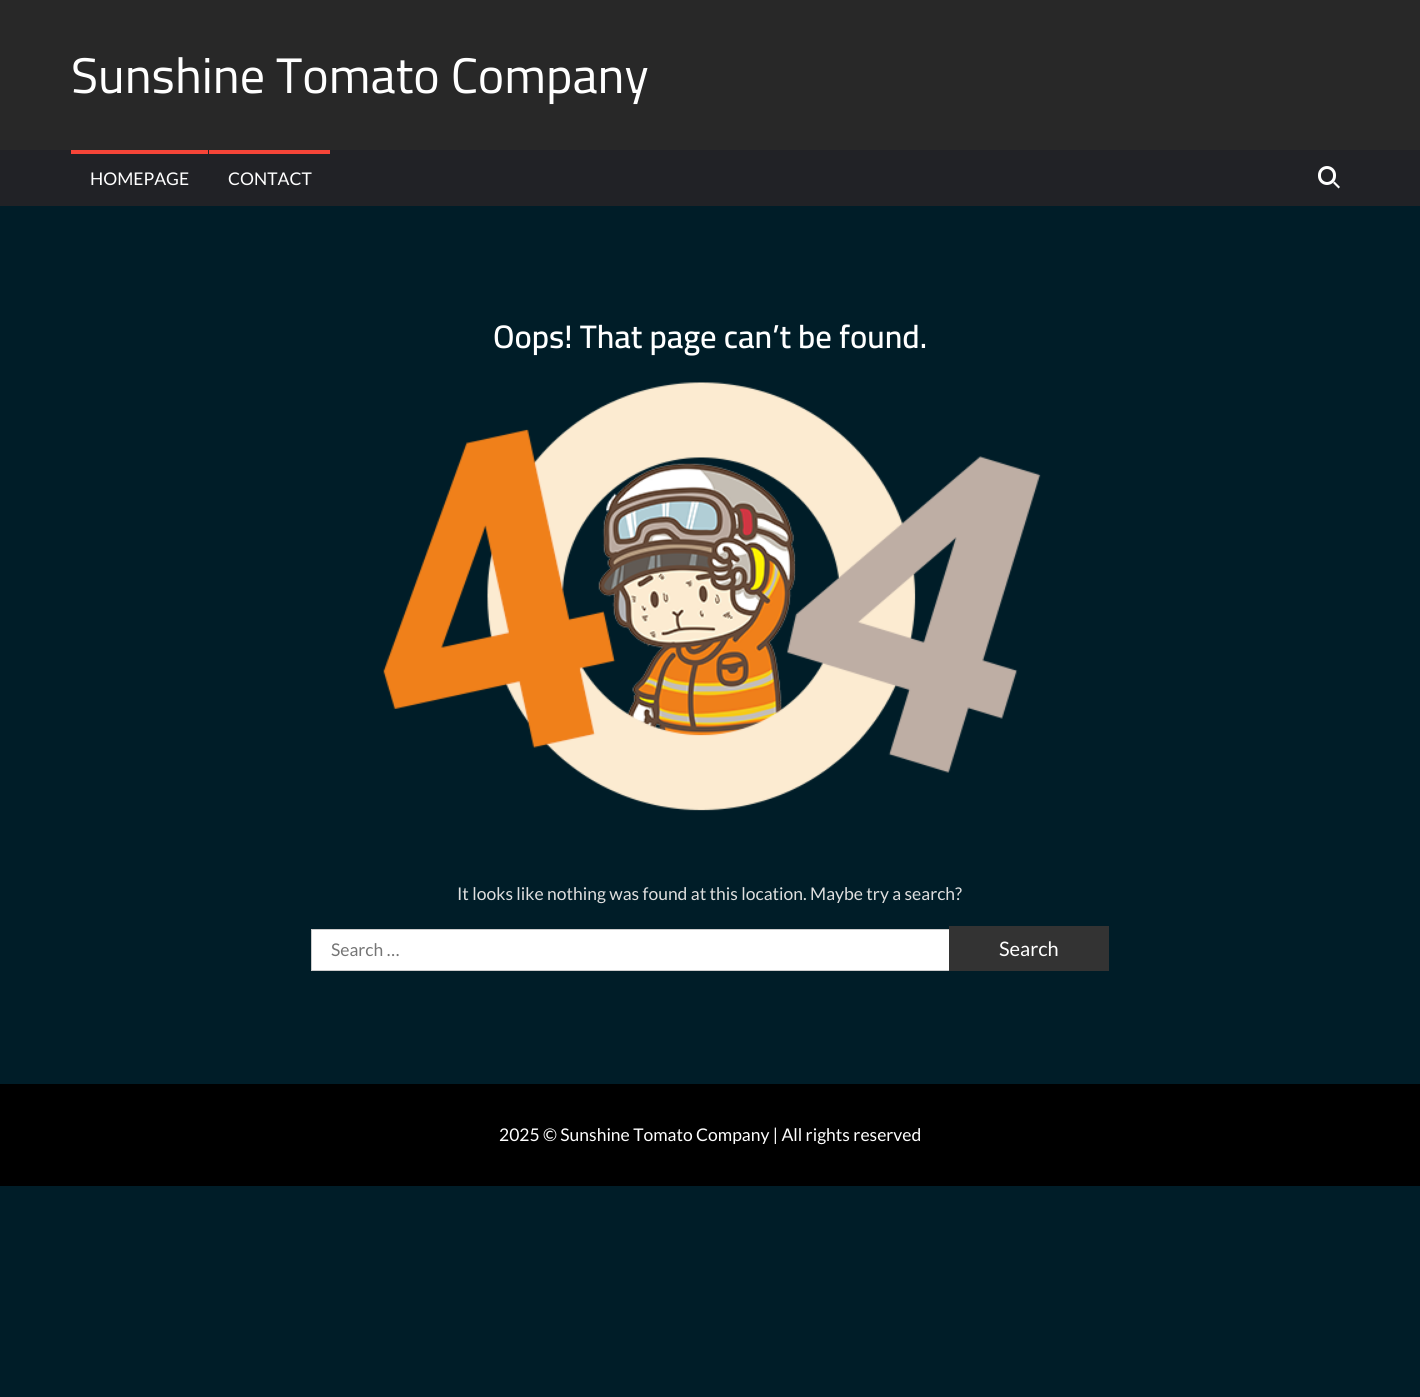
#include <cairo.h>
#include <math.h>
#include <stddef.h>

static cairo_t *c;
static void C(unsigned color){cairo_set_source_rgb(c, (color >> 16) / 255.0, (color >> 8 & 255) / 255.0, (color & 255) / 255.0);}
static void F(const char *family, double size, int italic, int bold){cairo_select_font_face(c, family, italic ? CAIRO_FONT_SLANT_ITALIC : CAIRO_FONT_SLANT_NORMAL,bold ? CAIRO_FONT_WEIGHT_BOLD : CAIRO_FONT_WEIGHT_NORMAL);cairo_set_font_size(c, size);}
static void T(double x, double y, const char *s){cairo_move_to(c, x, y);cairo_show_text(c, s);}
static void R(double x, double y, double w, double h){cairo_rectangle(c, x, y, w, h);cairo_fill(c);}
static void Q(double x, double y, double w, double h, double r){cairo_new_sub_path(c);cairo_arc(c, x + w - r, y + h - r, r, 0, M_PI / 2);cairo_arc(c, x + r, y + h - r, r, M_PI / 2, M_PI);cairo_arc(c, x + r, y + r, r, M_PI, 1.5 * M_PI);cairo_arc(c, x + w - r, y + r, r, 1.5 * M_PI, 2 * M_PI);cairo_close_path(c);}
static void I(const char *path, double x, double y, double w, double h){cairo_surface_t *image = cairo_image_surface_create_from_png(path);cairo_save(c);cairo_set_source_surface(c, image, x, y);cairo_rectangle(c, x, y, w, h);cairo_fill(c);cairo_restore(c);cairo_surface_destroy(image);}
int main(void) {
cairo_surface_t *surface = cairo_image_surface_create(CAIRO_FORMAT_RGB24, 1420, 1397);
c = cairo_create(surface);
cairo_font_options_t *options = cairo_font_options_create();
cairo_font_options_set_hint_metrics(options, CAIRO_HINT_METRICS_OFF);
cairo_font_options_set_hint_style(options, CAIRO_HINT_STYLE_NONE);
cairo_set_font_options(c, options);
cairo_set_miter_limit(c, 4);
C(0x001d28);
cairo_paint(c);
C(0x282828);
R(0,0,1420,150);
F("Cairo",50,0,0);
C(0xffffff);
T(71,93,"Sunshine Tomato Company");
C(0x212226);
R(0,150,1420,56);
C(0xf64538);
R(71,150,137,4);
F("Lato",17.5,0,0);
C(0xffffff);
T(90,185,"HOMEPAGE");
C(0xf64538);
R(209,150,121,4);
C(0xffffff);
T(228,185,"CONTACT");
Q(1319.5,167.5,15,16,7.5);
cairo_set_line_width(c,3);
cairo_stroke(c);
cairo_new_path(c);
cairo_move_to(c,1334.5,181.5);
cairo_line_to(c,1340,187);
cairo_line_to(c,1338.5,188.5);
cairo_line_to(c,1333,183);
cairo_close_path(c);
cairo_fill(c);
F("Cairo SemiBold",32.5,0,0);
T(493,348,"Oops! That page can’t be found.");
I("1.png",383,382,658,429);
F("Lato",17.5,0,0);
C(0xdfdfdf);
T(457,900,"It looks like nothing was found at this location. Maybe try a search?");
C(0xffffff);
cairo_rectangle(c,311.5,929.5,638,41);
cairo_fill_preserve(c);
C(0xcccccc);
cairo_set_line_width(c,1);
cairo_stroke(c);
C(0x757575);
T(331,956,"Search …");
C(0x333333);
R(949,926,160,45);
F("Lato",20,0,0);
C(0xffffff);
T(999,956,"Search");
C(0x000000);
R(0,1084,1420,102);
F("Lato",17.5,0,0);
C(0xffffff);
T(499,1141,"2025 © Sunshine Tomato Company | All rights reserved");
cairo_surface_write_to_png(surface, "o.png");
cairo_font_options_destroy(options);
cairo_destroy(c);
cairo_surface_destroy(surface);
return 0;
}
